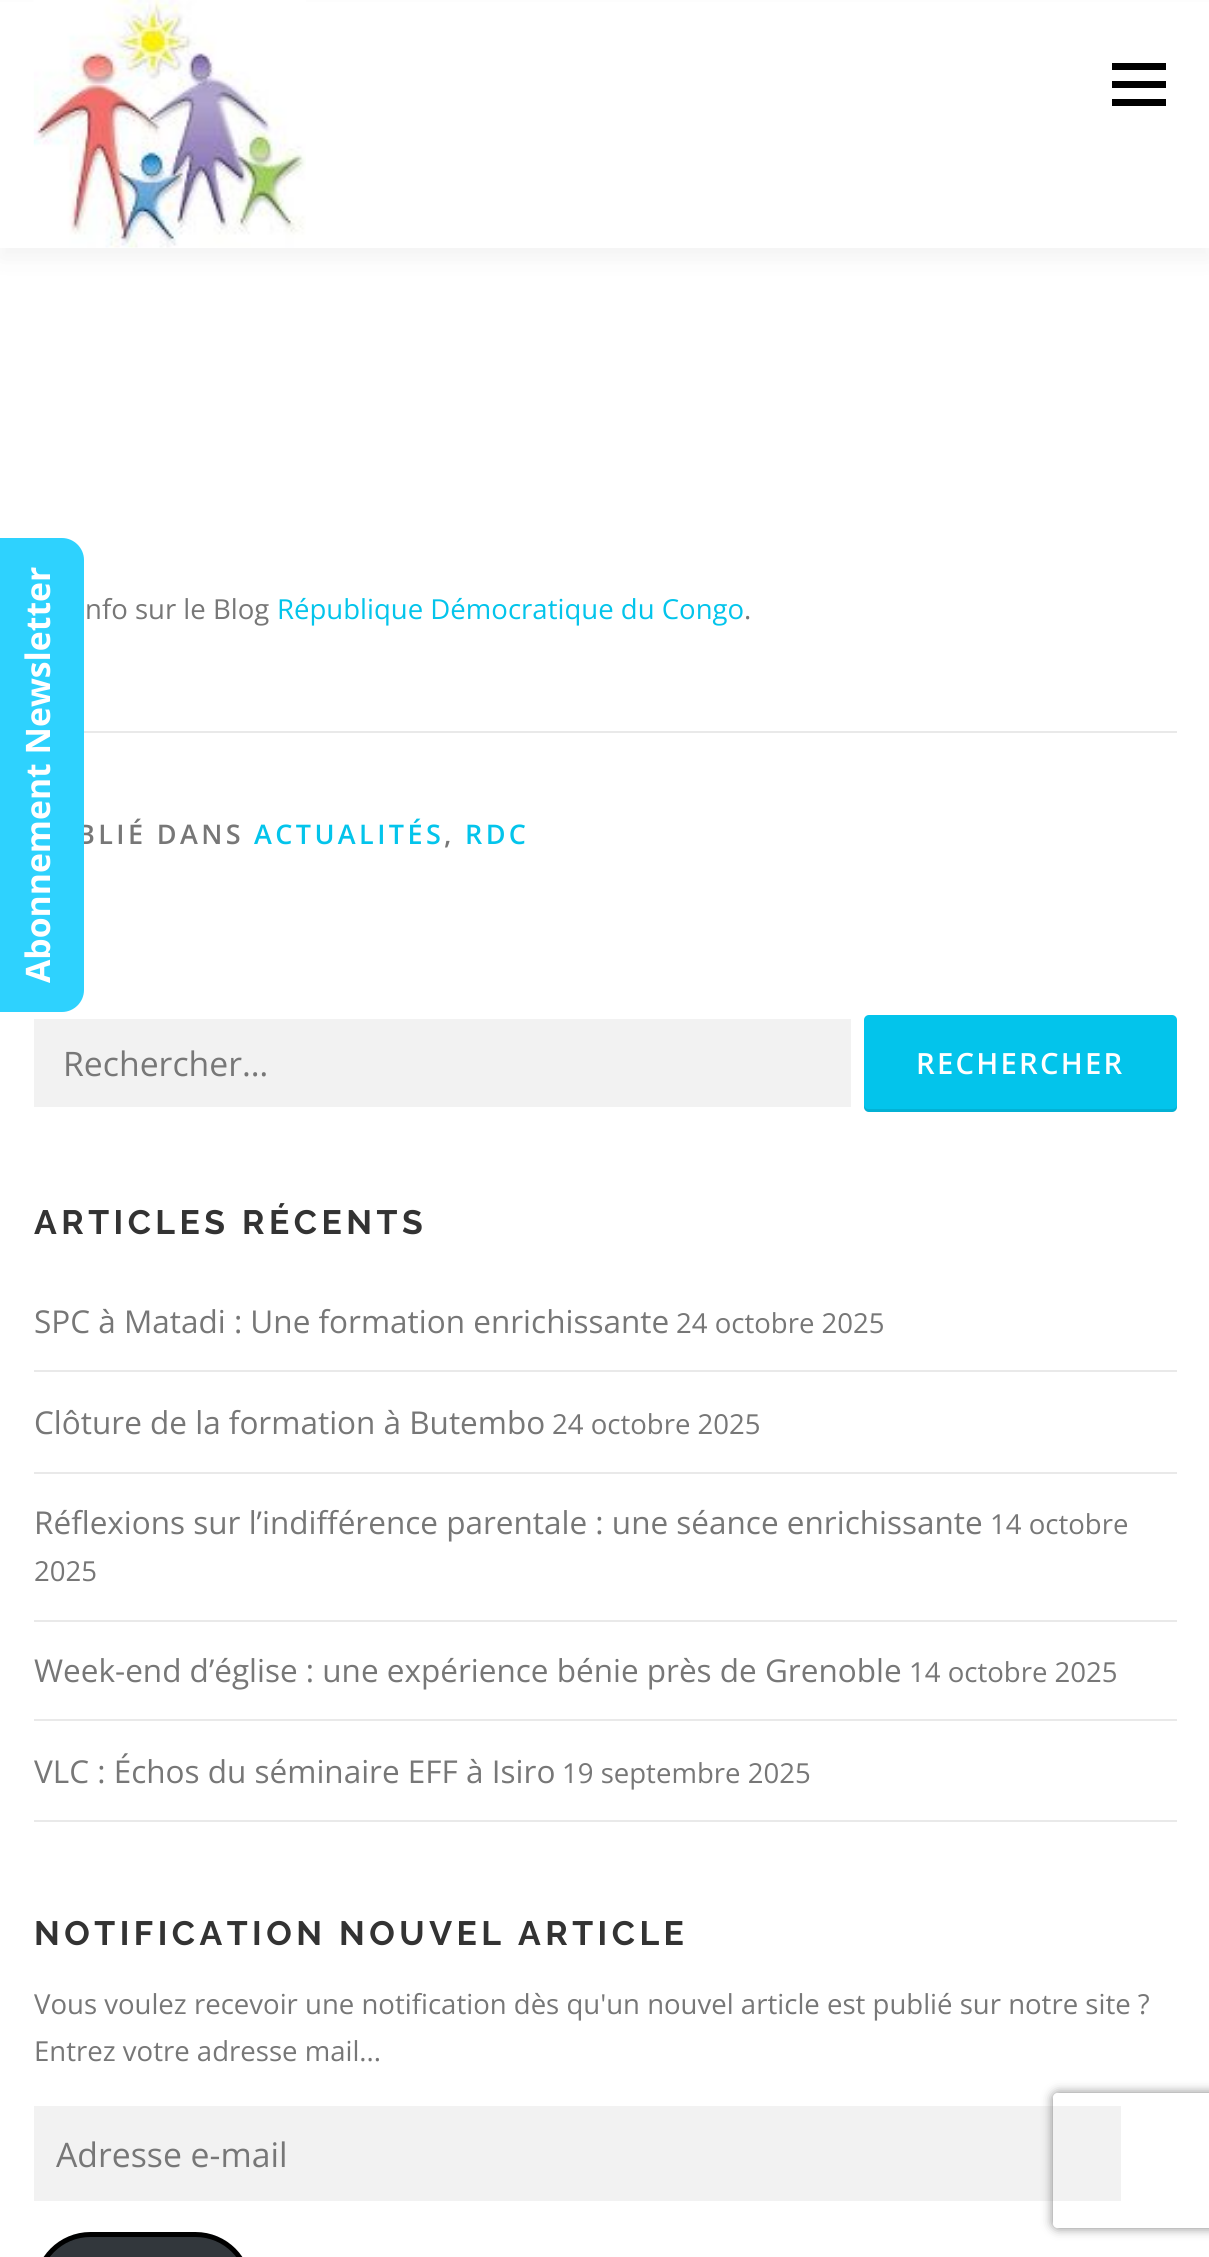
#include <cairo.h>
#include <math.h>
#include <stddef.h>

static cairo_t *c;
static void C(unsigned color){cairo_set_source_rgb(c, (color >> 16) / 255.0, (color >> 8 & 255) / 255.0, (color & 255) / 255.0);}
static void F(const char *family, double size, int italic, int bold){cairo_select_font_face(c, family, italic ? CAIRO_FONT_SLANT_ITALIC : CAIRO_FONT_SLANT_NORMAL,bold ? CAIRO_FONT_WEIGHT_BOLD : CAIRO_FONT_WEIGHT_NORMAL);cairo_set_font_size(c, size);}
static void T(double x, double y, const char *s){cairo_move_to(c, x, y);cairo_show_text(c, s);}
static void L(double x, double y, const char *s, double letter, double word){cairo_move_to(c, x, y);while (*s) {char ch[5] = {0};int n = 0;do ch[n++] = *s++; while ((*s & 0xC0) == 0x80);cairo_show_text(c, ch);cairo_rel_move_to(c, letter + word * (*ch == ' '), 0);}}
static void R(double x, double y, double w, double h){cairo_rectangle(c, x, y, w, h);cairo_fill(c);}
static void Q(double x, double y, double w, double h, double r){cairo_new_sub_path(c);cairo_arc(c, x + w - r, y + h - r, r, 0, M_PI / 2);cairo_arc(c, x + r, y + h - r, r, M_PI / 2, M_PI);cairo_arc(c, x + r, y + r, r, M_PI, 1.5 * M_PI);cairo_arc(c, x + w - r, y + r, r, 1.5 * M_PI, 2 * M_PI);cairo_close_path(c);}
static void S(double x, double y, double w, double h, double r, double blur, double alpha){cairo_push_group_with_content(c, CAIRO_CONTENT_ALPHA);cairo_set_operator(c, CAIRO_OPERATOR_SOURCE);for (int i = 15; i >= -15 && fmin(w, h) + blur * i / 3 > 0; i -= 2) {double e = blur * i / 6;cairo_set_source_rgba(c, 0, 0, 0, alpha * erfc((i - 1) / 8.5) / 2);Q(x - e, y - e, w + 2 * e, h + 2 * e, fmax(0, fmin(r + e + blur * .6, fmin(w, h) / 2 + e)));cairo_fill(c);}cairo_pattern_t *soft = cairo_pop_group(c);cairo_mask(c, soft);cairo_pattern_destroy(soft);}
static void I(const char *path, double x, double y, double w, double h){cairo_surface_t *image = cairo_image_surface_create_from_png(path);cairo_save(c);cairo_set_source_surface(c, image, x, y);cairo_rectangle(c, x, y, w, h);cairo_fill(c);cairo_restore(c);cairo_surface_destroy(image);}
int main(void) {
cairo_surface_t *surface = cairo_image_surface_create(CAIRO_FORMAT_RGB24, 1209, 2257);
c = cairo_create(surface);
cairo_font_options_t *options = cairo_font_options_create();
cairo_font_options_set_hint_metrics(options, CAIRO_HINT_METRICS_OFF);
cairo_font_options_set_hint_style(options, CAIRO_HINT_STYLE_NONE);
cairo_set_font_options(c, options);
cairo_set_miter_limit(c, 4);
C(0xffffff);
cairo_paint(c);
F("Open Sans SemiBold",27,0,0);
C(0x777777);
L(77,844,"BLIÉ DANS",3.4,0);
C(0x2ed2fe);
cairo_new_path(c);
cairo_move_to(c,-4,1012);
cairo_line_to(c,-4,538);
cairo_line_to(c,62,538);
cairo_curve_to(c,74,538,84,548,84,560);
cairo_line_to(c,84,990);
cairo_curve_to(c,84,1002,74,1012,62,1012);
cairo_close_path(c);
cairo_fill(c);
F("Open Sans",33.75,0,1);
C(0xffffff);
cairo_save(c);
cairo_translate(c,50,983);
cairo_rotate(c,-90 * M_PI / 180);
T(0,0,"Abonnement Newsletter");
cairo_restore(c);
C(0x323232);
S(0,11,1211,248,0,11,.06);
C(0xffffff);
R(0,2,1209,246);
I("1.png",33,0,273,248);
C(0x000000);
R(1112,81,54,7);
R(1112,63,54,7);
R(1112,99,54,7);
F("Open Sans",27.55,0,0);
C(0x777777);
T(85,619,"nfo sur le Blog");
C(0x03c4eb);
T(277,619,"République Démocratique du Congo");
C(0x777777);
T(744,619,".");
C(0xe9e9e9);
R(84,731,1093,2);
F("Open Sans SemiBold",27,0,0);
C(0x03c4eb);
L(254,844,"ACTUALITÉS",3.4,0);
C(0x777777);
L(444,844,",",3.4,0);
C(0x03c4eb);
L(465,844,"RDC",3.4,0);
C(0xf2f2f2);
R(34,1019,817,88);
F("Open Sans",33.75,0,0);
C(0x777777);
T(63,1076,"Rechercher…");
C(0x03c4eb);
Q(864,1015,313,97,5);
cairo_fill(c);
cairo_set_source_rgba(c,0,0,0,0.1);
cairo_new_path(c);
cairo_move_to(c,864,1105);
cairo_line_to(c,864,1107);
cairo_curve_to(c,864,1110,866,1112,869,1112);
cairo_line_to(c,1172,1112);
cairo_curve_to(c,1175,1112,1177,1110,1177,1107);
cairo_line_to(c,1177,1105);
cairo_curve_to(c,1177,1107,1175,1109,1172,1109);
cairo_line_to(c,868,1109);
cairo_curve_to(c,866,1109,864,1107,864,1105);
cairo_close_path(c);
cairo_fill(c);
F("Open Sans SemiBold",29.25,0,0);
C(0xffffff);
L(916,1074,"RECHERCHER",2.25,0);
F("Raleway",33.75,0,1);
C(0x333333);
L(34,1234,"ARTICLES RÉCENTS",4.5,0);
C(0xe9e9e9);
R(34,1370,1143,2);
F("Open Sans",31.5,0,0);
C(0x777777);
T(34,1333,"SPC à Matadi : Une formation enrichissante");
F("Open Sans",27.55,0,0);
T(676,1333,"24 octobre 2025");
C(0xe9e9e9);
R(34,1472,1143,2);
F("Open Sans",31.5,0,0);
C(0x777777);
T(34,1434,"Clôture de la formation à Butembo");
F("Open Sans",27.55,0,0);
T(552,1434,"24 octobre 2025");
C(0xe9e9e9);
R(34,1620,1143,2);
F("Open Sans",31.5,0,0);
C(0x777777);
T(34,1534,"Réflexions sur l’indifférence parentale : une séance enrichissante");
F("Open Sans",27.55,0,0);
T(990,1534,"14 octobre");
T(34,1581,"2025");
C(0xe9e9e9);
R(34,1719,1143,2);
F("Open Sans",31.5,0,0);
C(0x777777);
T(34,1682,"Week-end d’église : une expérience bénie près de Grenoble");
F("Open Sans",27.55,0,0);
T(909,1682,"14 octobre 2025");
C(0xe9e9e9);
R(34,1820,1143,2);
F("Open Sans",31.5,0,0);
C(0x777777);
T(34,1783,"VLC : Échos du séminaire EFF à Isiro");
F("Open Sans",27.55,0,0);
T(562,1783,"19 septembre 2025");
F("Raleway",33.75,0,1);
C(0x333333);
L(34,1945,"NOTIFICATION NOUVEL ARTICLE",4.5,0);
F("Open Sans",27.55,0,0);
C(0x777777);
T(34,2014,"Vous voulez recevoir une notification dès qu'un nouvel article est publié sur notre site ?");
T(34,2061,"Entrez votre adresse mail...");
C(0xf2f2f2);
R(34,2106,1087,95);
F("Open Sans",33.75,0,0);
C(0x777777);
T(56,2167,"Adresse e-mail");
C(0x32373c);
Q(36.5,2234.5,213,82,54);
cairo_fill_preserve(c);
C(0x000000);
cairo_set_line_width(c,5);
cairo_stroke(c);
cairo_save(c);
cairo_set_fill_rule(c,CAIRO_FILL_RULE_EVEN_ODD);
cairo_new_path(c);
cairo_move_to(c,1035,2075);
cairo_line_to(c,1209,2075);
cairo_line_to(c,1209,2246);
cairo_line_to(c,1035,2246);
cairo_close_path(c);
cairo_move_to(c,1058,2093);
cairo_line_to(c,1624,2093);
cairo_curve_to(c,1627,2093,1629,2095,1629,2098);
cairo_line_to(c,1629,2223);
cairo_curve_to(c,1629,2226,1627,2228,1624,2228);
cairo_line_to(c,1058,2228);
cairo_curve_to(c,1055,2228,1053,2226,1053,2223);
cairo_line_to(c,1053,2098);
cairo_curve_to(c,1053,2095,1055,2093,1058,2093);
cairo_close_path(c);
cairo_clip(c);
C(0x808080);
S(1053,2093,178,135,5,5.5,1);
cairo_restore(c);
cairo_surface_write_to_png(surface, "o.png");
cairo_font_options_destroy(options);
cairo_destroy(c);
cairo_surface_destroy(surface);
return 0;
}
